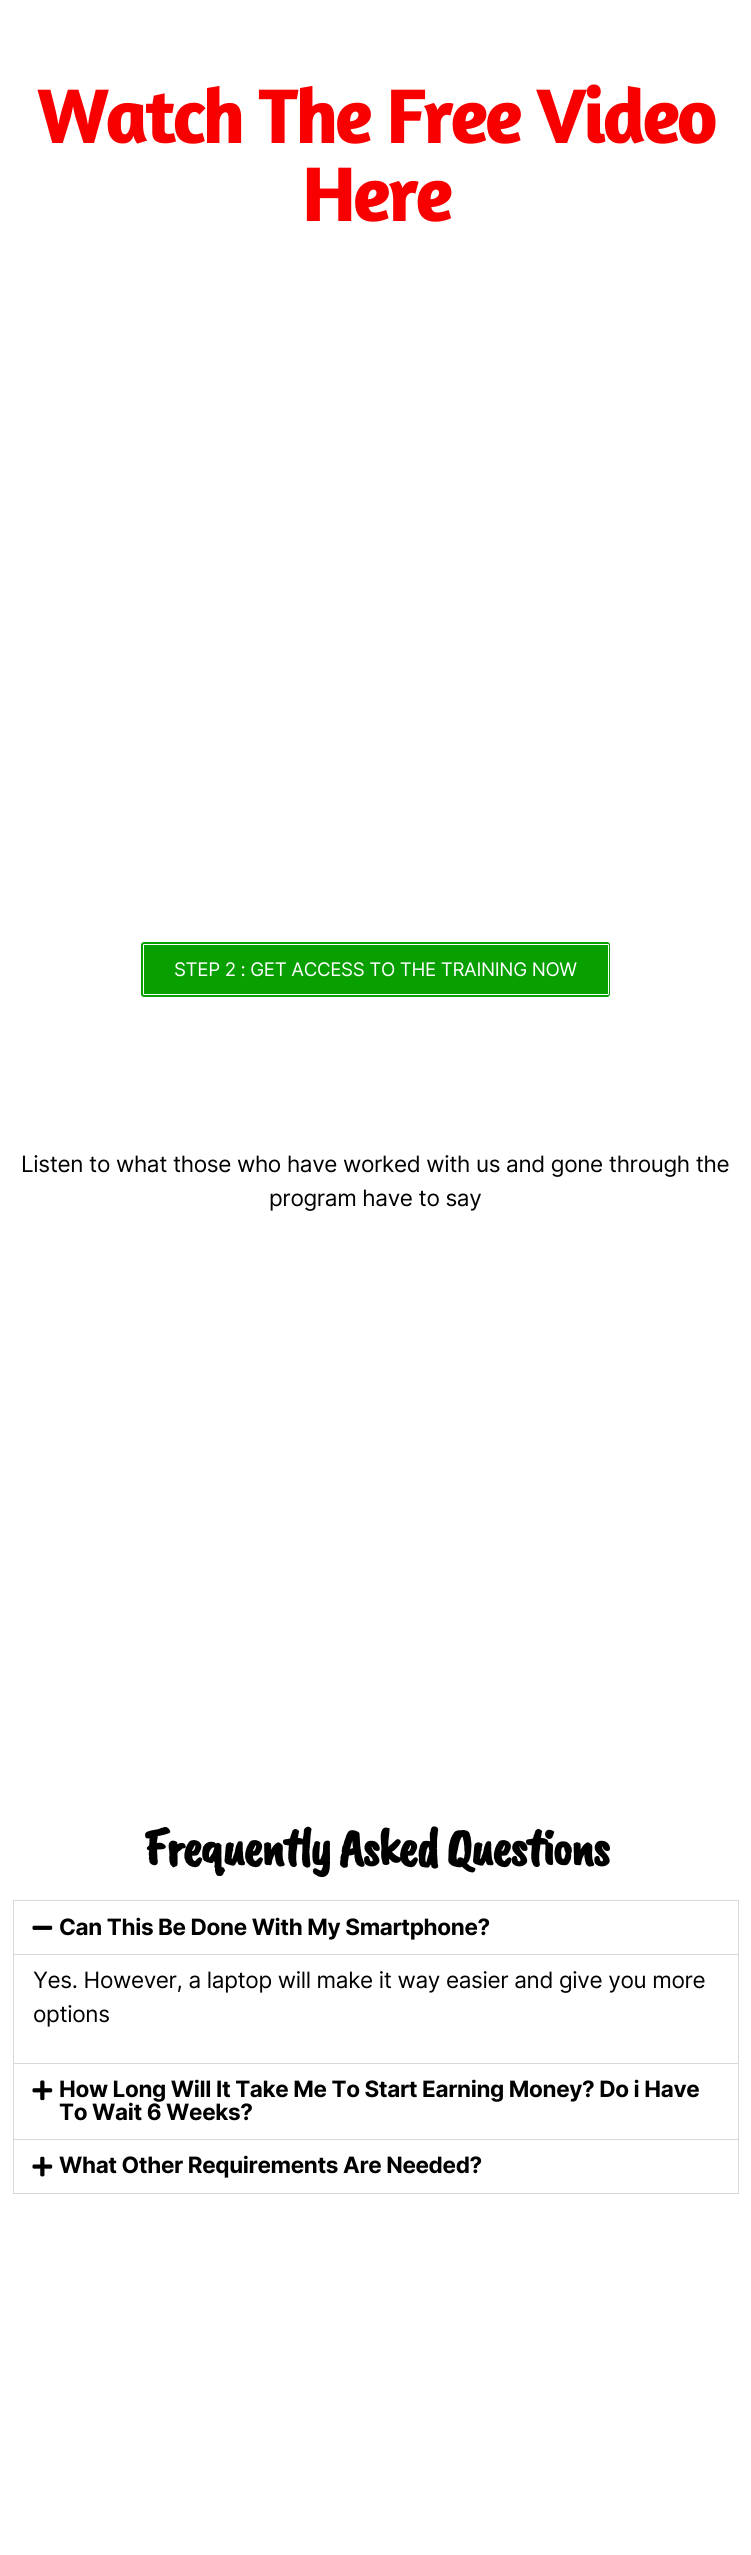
#include <cairo.h>
#include <math.h>
#include <stddef.h>

static cairo_t *c;
static void C(unsigned color){cairo_set_source_rgb(c, (color >> 16) / 255.0, (color >> 8 & 255) / 255.0, (color & 255) / 255.0);}
static void F(const char *family, double size, int italic, int bold){cairo_select_font_face(c, family, italic ? CAIRO_FONT_SLANT_ITALIC : CAIRO_FONT_SLANT_NORMAL,bold ? CAIRO_FONT_WEIGHT_BOLD : CAIRO_FONT_WEIGHT_NORMAL);cairo_set_font_size(c, size);}
static void L(double x, double y, const char *s, double letter, double word){cairo_move_to(c, x, y);while (*s) {char ch[5] = {0};int n = 0;do ch[n++] = *s++; while ((*s & 0xC0) == 0x80);cairo_show_text(c, ch);cairo_rel_move_to(c, letter + word * (*ch == ' '), 0);}}
static void R(double x, double y, double w, double h){cairo_rectangle(c, x, y, w, h);cairo_fill(c);}
static void Q(double x, double y, double w, double h, double r){cairo_new_sub_path(c);cairo_arc(c, x + w - r, y + h - r, r, 0, M_PI / 2);cairo_arc(c, x + r, y + h - r, r, M_PI / 2, M_PI);cairo_arc(c, x + r, y + r, r, M_PI, 1.5 * M_PI);cairo_arc(c, x + w - r, y + r, r, 1.5 * M_PI, 2 * M_PI);cairo_close_path(c);}
static void I(const char *path, double x, double y, double w, double h){cairo_surface_t *image = cairo_image_surface_create_from_png(path);cairo_save(c);cairo_set_source_surface(c, image, x, y);cairo_rectangle(c, x, y, w, h);cairo_fill(c);cairo_restore(c);cairo_surface_destroy(image);}
int main(void) {
cairo_surface_t *surface = cairo_image_surface_create(CAIRO_FORMAT_RGB24, 751, 2555);
c = cairo_create(surface);
cairo_font_options_t *options = cairo_font_options_create();
cairo_font_options_set_hint_metrics(options, CAIRO_HINT_METRICS_OFF);
cairo_font_options_set_hint_style(options, CAIRO_HINT_STYLE_NONE);
cairo_set_font_options(c, options);
cairo_set_miter_limit(c, 4);
C(0xffffff);
cairo_paint(c);
F("Amaranth",78.75,0,1);
C(0xf90000);
L(37,143,"Watch The Free Video",-3.25,0);
L(302,221,"Here",-3.25,0);
C(0x07a000);
Q(140.5,941.5,470,56,3.5);
cairo_fill_preserve(c);
C(0xffffff);
cairo_set_line_width(c,1);
cairo_stroke(c);
Q(143.5,944.5,465,50,.5);
cairo_stroke(c);
F("Inter",18.75,0,0);
L(174,976,"STEP 2 : GET ACCESS TO THE TRAINING NOW",-.35,0);
F("Inter",22.5,0,0);
C(0x000000);
L(21,1172,"Listen to what those who have worked with us and gone through the",-.35,0);
L(269,1206,"program have to say",-.35,0);
F("Caveat Brush",53.75,0,1);
L(143,1865,"Frequently Asked Questions",-2.25,0);
cairo_rectangle(c,13.5,1900.5,725,163);
C(0xd5d8dc);
cairo_stroke(c);
I("1.png",32,1925,21,5);
F("Inter",22.5,0,1);
C(0x000000);
L(59,1935,"Can This Be Done With My Smartphone?",-.35,0);
C(0xd5d8dc);
R(14,1954,724,1);
F("Inter",22.5,0,0);
C(0x000000);
L(33,1988,"Yes. However, a laptop will make it way easier and give you more",-.35,0);
L(33,2022,"options",-.35,0);
C(0xd5d8dc);
R(738,2064,1,130);
R(13,2139,726,1);
R(13,2064,1,76);
I("2.png",32,2080,21,21);
F("Inter",22.5,0,1);
C(0x000000);
L(59,2097,"How Long Will It Take Me To Start Earning Money? Do i Have",-.35,0);
L(59,2120,"To Wait 6 Weeks?",-.35,0);
C(0xd5d8dc);
R(13,2193,726,1);
R(13,2140,1,54);
I("3.png",32,2156,21,21);
C(0x000000);
L(59,2173,"What Other Requirements Are Needed?",-.35,0);
cairo_surface_write_to_png(surface, "o.png");
cairo_font_options_destroy(options);
cairo_destroy(c);
cairo_surface_destroy(surface);
return 0;
}
